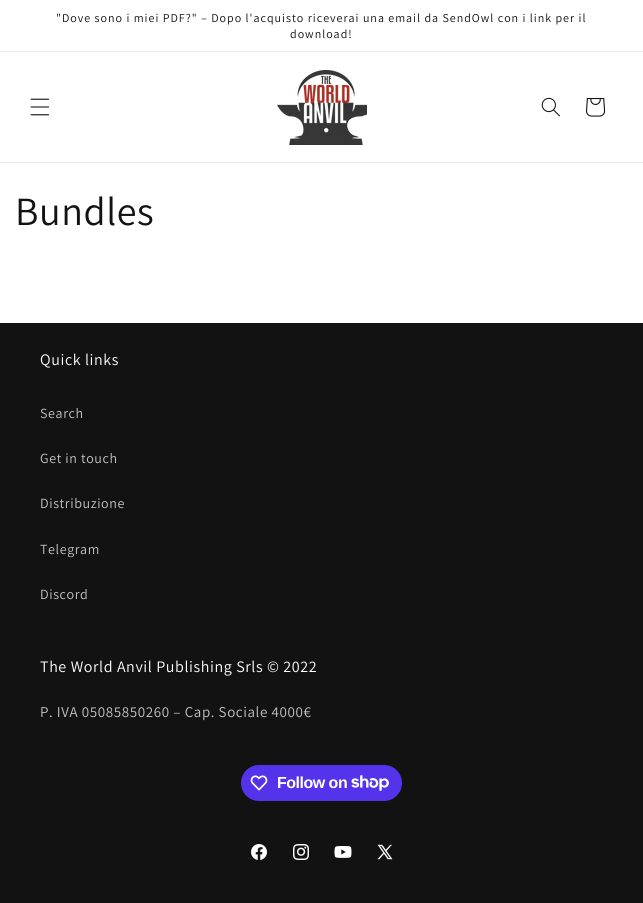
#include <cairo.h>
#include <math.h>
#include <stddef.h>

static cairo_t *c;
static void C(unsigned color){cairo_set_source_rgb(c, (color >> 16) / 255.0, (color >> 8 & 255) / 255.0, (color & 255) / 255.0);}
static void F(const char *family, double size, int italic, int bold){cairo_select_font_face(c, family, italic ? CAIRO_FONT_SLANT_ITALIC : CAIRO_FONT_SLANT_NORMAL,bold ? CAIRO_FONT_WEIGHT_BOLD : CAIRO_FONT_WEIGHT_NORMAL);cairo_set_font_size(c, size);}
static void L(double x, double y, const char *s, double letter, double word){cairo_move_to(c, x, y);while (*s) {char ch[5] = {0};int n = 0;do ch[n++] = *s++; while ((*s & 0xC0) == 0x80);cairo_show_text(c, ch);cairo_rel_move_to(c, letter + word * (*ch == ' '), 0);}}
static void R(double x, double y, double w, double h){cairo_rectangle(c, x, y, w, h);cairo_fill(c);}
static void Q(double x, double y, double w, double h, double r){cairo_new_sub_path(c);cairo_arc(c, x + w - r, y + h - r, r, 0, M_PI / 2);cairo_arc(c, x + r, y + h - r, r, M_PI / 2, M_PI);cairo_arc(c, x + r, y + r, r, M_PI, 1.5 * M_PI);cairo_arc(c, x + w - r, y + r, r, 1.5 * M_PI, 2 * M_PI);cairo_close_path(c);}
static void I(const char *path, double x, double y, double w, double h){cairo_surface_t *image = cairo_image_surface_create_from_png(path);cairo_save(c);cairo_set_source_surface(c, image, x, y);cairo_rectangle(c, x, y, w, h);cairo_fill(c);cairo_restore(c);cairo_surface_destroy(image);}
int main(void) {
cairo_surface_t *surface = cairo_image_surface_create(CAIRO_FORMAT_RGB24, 643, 903);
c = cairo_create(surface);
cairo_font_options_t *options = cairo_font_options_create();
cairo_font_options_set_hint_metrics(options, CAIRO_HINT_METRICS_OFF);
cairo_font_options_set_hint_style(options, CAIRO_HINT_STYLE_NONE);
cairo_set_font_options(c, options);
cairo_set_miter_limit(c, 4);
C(0xffffff);
cairo_paint(c);
C(0xececec);
R(0,51,643,1);
F("Assistant",12,0,0);
C(0x121212);
L(56,22,"\"Dove sono i miei PDF?\" – Dopo l'acquisto riceverai una email da SendOwl con i link per il",1,0);
L(290,38,"download!",1,0);
C(0xececec);
R(0,162,643,1);
I("1.png",30,98,20,18);
I("2.png",277,70,90,75);
I("3.png",541,97,19,20);
I("4.png",586,98,20,19);
F("Assistant",40,0,0);
C(0x121212);
L(15,225,"Bundles",.6,0);
R(0,323,643,580);
F("Assistant",16,0,0);
C(0xffffff);
L(40,365,"Quick links",.6,0);
F("Assistant",14,0,0);
C(0xc4c4c4);
L(40,418,"Search",.6,0);
L(40,463,"Get in touch",.6,0);
L(40,508,"Distribuzione",.6,0);
L(40,554,"Telegram",.6,0);
L(40,599,"Discord",.6,0);
F("Assistant",16,0,0);
C(0xffffff);
L(40,672,"The World Anvil Publishing Srls © 2022",.6,0);
F("Assistant",15,0,0);
C(0xc4c4c4);
L(40,717,"P. IVA 05085850260 – Cap. Sociale 4000€",.6,0);
C(0x5433eb);
Q(241,765,161,36,18);
cairo_fill(c);
I("5.png",250,775,18,16);
F("Liberation Sans",16,0,1);
C(0xffffff);
L(277,788,"Follow on",-.5,0);
I("6.png",351,775,38,16);
I("7.png",251,844,16,16);
I("8.png",293,844,16,16);
I("9.png",334,846,18,12);
I("10.png",377,844,16,16);
cairo_surface_write_to_png(surface, "o.png");
cairo_font_options_destroy(options);
cairo_destroy(c);
cairo_surface_destroy(surface);
return 0;
}
